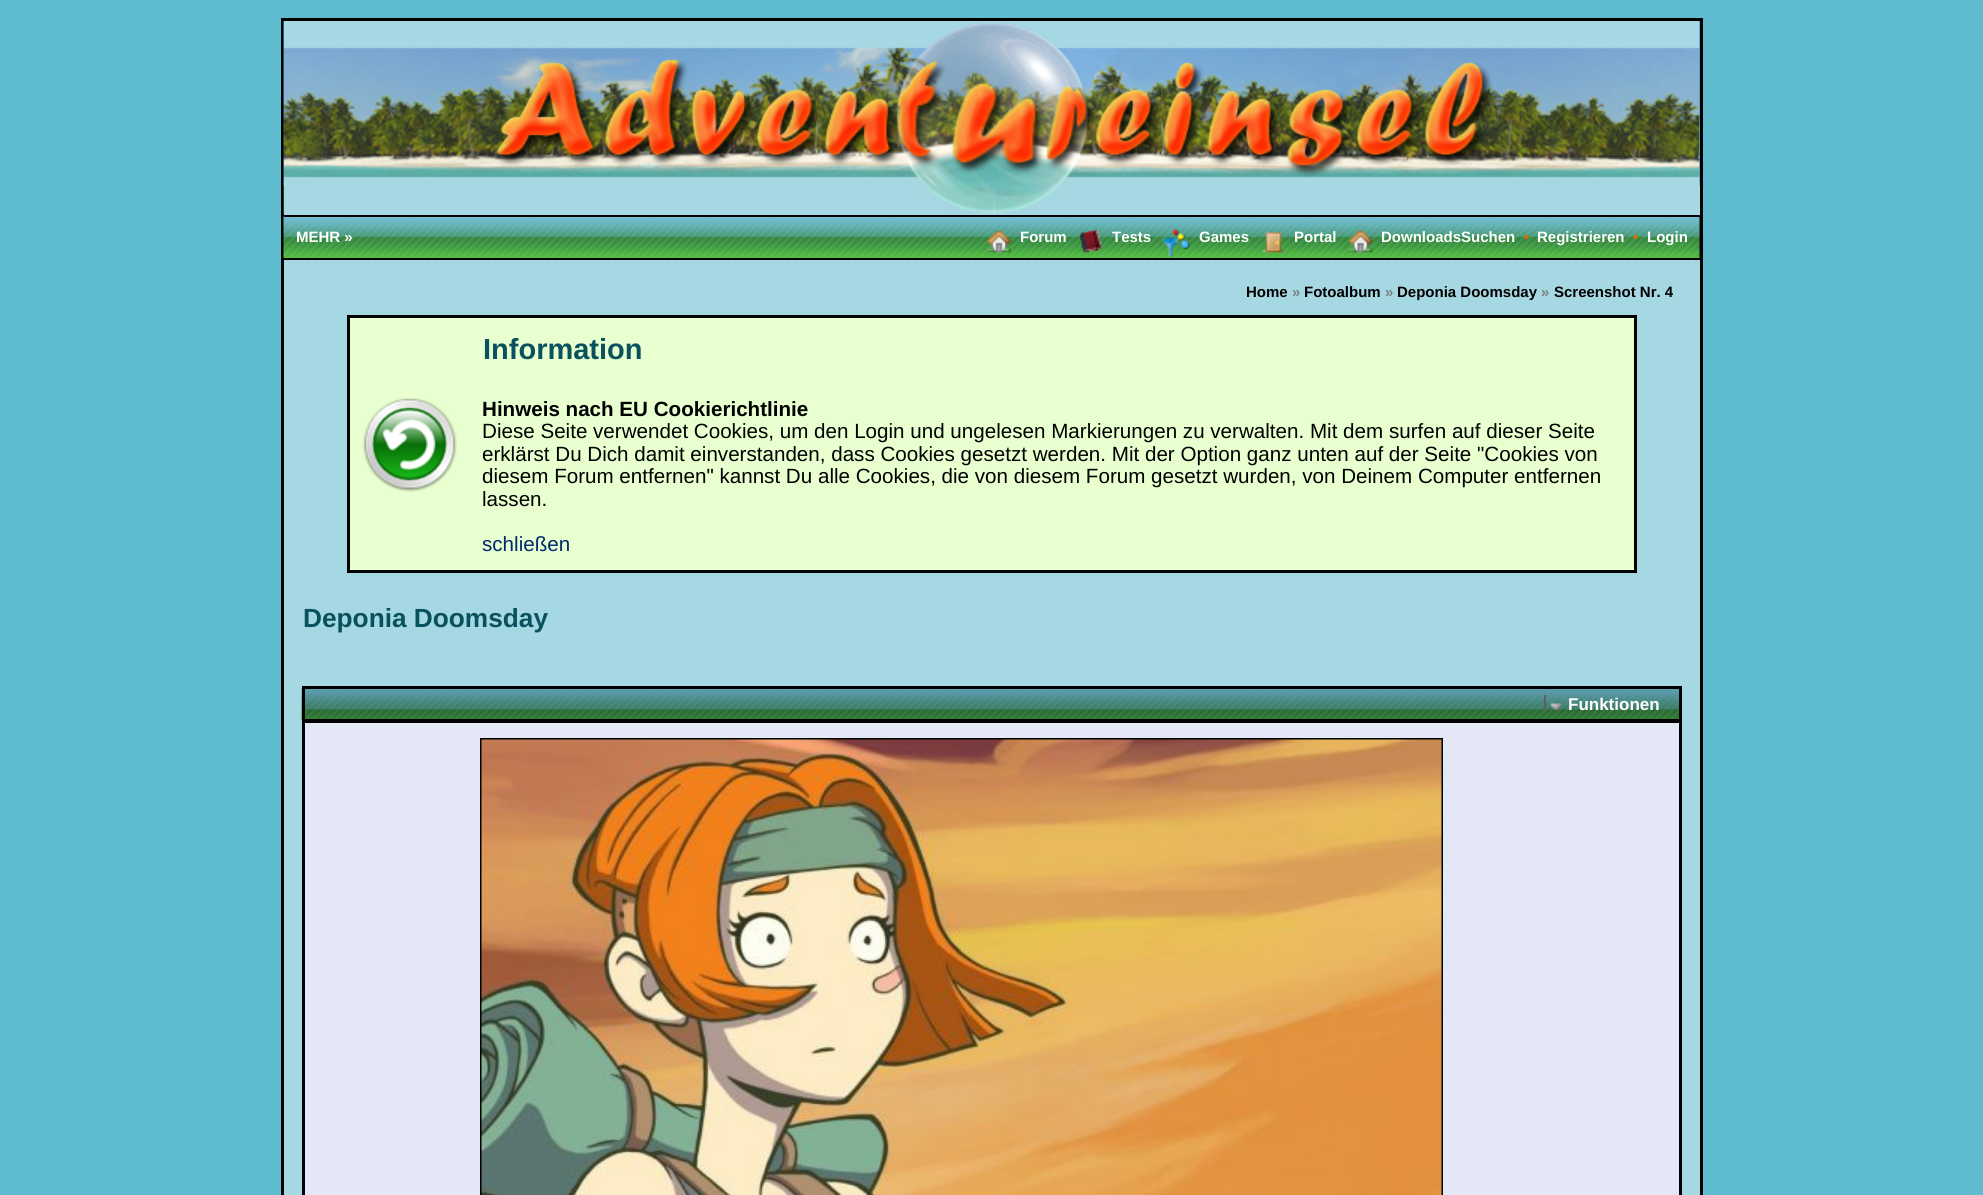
#include <cairo.h>
#include <math.h>
#include <stddef.h>

static cairo_t *c;
static void C(unsigned color){cairo_set_source_rgb(c, (color >> 16) / 255.0, (color >> 8 & 255) / 255.0, (color & 255) / 255.0);}
static void F(const char *family, double size, int italic, int bold){cairo_select_font_face(c, family, italic ? CAIRO_FONT_SLANT_ITALIC : CAIRO_FONT_SLANT_NORMAL,bold ? CAIRO_FONT_WEIGHT_BOLD : CAIRO_FONT_WEIGHT_NORMAL);cairo_set_font_size(c, size);}
static void T(double x, double y, const char *s){cairo_move_to(c, x, y);cairo_show_text(c, s);}
static void R(double x, double y, double w, double h){cairo_rectangle(c, x, y, w, h);cairo_fill(c);}
static void I(const char *path, double x, double y, double w, double h){cairo_surface_t *image = cairo_image_surface_create_from_png(path);cairo_save(c);cairo_set_source_surface(c, image, x, y);cairo_rectangle(c, x, y, w, h);cairo_fill(c);cairo_restore(c);cairo_surface_destroy(image);}
int main(void) {
cairo_surface_t *surface = cairo_image_surface_create(CAIRO_FORMAT_RGB24, 1983, 1195);
c = cairo_create(surface);
cairo_font_options_t *options = cairo_font_options_create();
cairo_font_options_set_hint_metrics(options, CAIRO_HINT_METRICS_OFF);
cairo_font_options_set_hint_style(options, CAIRO_HINT_STYLE_NONE);
cairo_set_font_options(c, options);
cairo_set_miter_limit(c, 4);
C(0x5ebcce);
cairo_paint(c);
cairo_rectangle(c,282.5,19.5,1419,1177);
C(0x000000);
cairo_set_line_width(c,3);
cairo_stroke(c);
C(0xb4d6ef);
R(284,21,1416,194);
I("1.png",283,21,1417,165);
I("2.png",283,21,1417,194);
C(0x000000);
R(284,217,1416,43);
I("3.png",283,216,1417,42);
R(284,215,1416,2);
F("Liberation Sans",15,0,1);
C(0xffffff);
T(296,242,"MEHR »");
I("4.png",987,229,24,24);
T(1020,242,"Forum");
I("5.png",1079,229,23,24);
T(1112,242,"Tests");
I("6.png",1162,229,28,28);
T(1199,242,"Games");
I("7.png",1262,232,23,21);
T(1294,242,"Portal");
I("8.png",1348,229,25,24);
T(1381,242,"DownloadsSuchen");
C(0xdd6900);
T(1524,242,"•");
C(0xffffff);
T(1537,242,"Registrieren");
C(0xdd6900);
T(1633,242,"•");
C(0xffffff);
T(1647,242,"Login");
C(0xa5d8e2);
R(284,260,1416,935);
C(0x000000);
T(1246,297,"Home");
C(0x7f7f7f);
T(1292,297,"»");
C(0x000000);
T(1304,297,"Fotoalbum");
C(0x7f7f7f);
T(1385,297,"»");
C(0x000000);
T(1397,297,"Deponia Doomsday");
C(0x7f7f7f);
T(1541,297,"»");
C(0x000000);
T(1554,297,"Screenshot Nr. 4");
C(0xe8ffcf);
R(350,318,1284,252);
I("9.png",362,397,95,95);
cairo_rectangle(c,348.5,316.5,1287,255);
C(0x000000);
cairo_stroke(c);
F("Liberation Sans",29,0,1);
C(0x09525d);
T(483,359,"Information");
F("Liberation Sans",20.6,0,1);
C(0x000000);
T(482,416,"Hinweis nach EU Cookierichtlinie");
F("Liberation Sans",20.6,0,0);
T(482,438,"Diese Seite verwendet Cookies, um den Login und ungelesen Markierungen zu verwalten. Mit dem surfen auf dieser Seite");
T(482,461,"erklärst Du Dich damit einverstanden, dass Cookies gesetzt werden. Mit der Option ganz unten auf der Seite \"Cookies von");
T(482,483,"diesem Forum entfernen\" kannst Du alle Cookies, die von diesem Forum gesetzt wurden, von Deinem Computer entfernen");
T(482,506,"lassen.");
C(0x00286f);
T(482,551,"schließen");
F("Liberation Sans",26.25,0,1);
C(0x09525d);
T(303,627,"Deponia Doomsday");
I("10.png",301,688,1378,32);
C(0x000000);
R(302,686,1380,3);
R(1679,686,3,34);
R(302,719,1380,1);
R(302,686,3,34);
I("11.png",1550,703,12,9);
F("Liberation Sans",17,0,1);
C(0xffffff);
T(1568,710,"Funktionen");
C(0x5f5f5f);
R(1544,695,2,18);
C(0xe4e7f5);
cairo_rectangle(c,303.5,721.5,1377,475);
cairo_fill_preserve(c);
C(0x000000);
cairo_stroke(c);
cairo_rectangle(c,481,739,961,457);
cairo_set_line_width(c,2);
cairo_stroke(c);
I("12.png",481,739,961,456);
cairo_surface_write_to_png(surface, "o.png");
cairo_font_options_destroy(options);
cairo_destroy(c);
cairo_surface_destroy(surface);
return 0;
}
